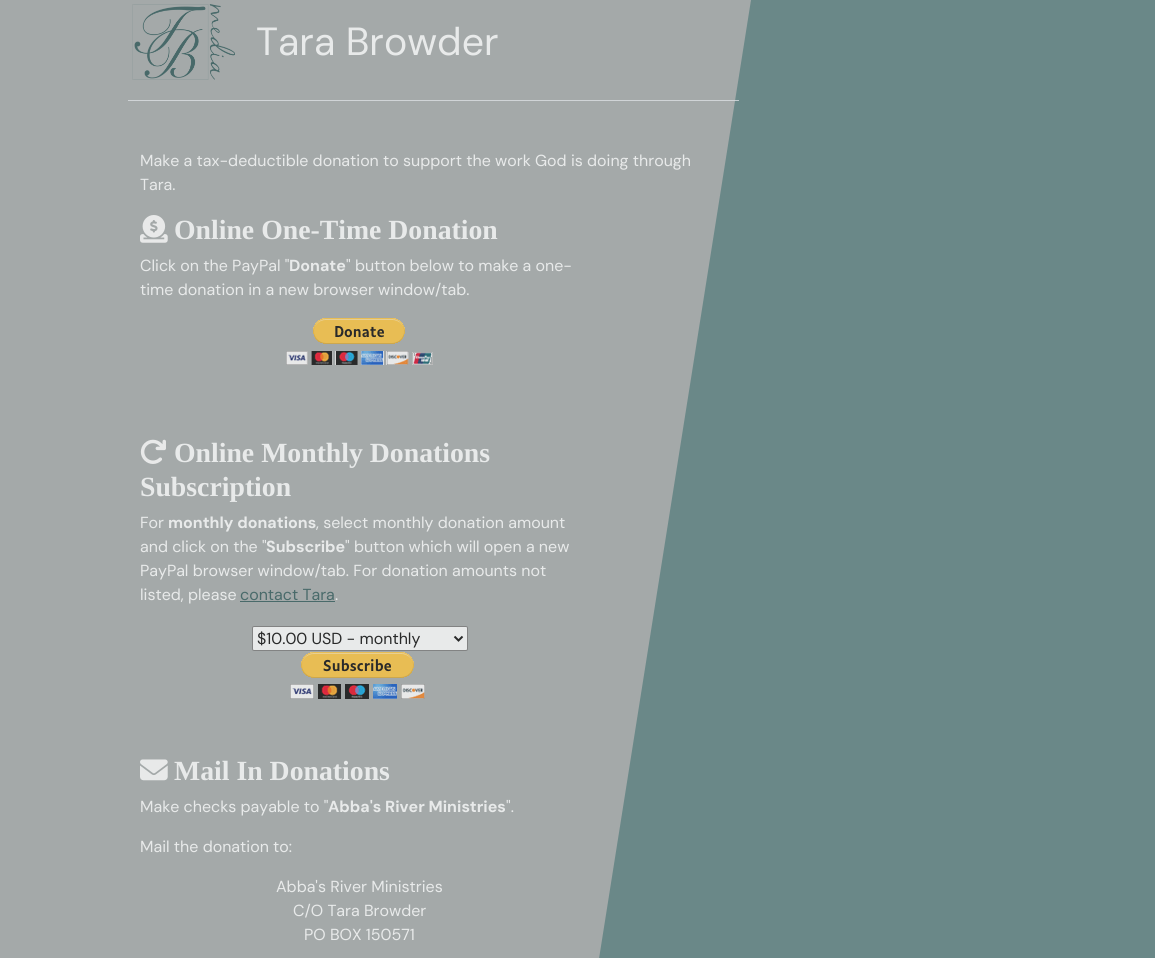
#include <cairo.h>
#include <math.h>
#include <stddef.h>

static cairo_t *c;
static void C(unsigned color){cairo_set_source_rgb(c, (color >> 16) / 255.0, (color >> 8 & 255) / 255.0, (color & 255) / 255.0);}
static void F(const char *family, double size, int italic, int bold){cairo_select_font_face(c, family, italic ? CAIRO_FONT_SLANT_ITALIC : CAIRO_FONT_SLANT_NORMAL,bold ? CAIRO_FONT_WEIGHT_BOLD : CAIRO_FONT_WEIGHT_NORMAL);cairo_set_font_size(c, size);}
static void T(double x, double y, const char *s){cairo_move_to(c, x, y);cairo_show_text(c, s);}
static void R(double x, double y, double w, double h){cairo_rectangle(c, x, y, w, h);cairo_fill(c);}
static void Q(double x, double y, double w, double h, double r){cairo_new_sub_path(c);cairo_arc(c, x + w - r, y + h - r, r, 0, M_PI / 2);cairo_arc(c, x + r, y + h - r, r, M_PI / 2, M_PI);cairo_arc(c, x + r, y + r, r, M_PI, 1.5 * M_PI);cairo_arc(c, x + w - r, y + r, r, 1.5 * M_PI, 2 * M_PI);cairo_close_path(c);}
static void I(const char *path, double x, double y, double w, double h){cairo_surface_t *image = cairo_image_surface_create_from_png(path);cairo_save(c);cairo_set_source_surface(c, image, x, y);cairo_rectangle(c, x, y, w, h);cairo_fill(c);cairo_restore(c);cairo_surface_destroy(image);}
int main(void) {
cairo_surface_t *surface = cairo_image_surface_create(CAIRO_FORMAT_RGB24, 1155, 958);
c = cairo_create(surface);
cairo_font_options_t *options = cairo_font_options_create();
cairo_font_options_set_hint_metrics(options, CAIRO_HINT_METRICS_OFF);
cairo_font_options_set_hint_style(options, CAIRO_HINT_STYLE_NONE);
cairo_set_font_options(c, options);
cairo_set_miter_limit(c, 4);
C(0x6a8888);
cairo_paint(c);
C(0xa4a9a9);
cairo_new_path(c);
cairo_move_to(c,0,0);
cairo_line_to(c,751,0);
cairo_line_to(c,585,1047);
cairo_line_to(c,-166,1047);
cairo_close_path(c);
cairo_fill(c);
cairo_set_source_rgba(c,0.871,0.886,0.902,0.75);
R(128,100,611,1);
I("1.png",132,4,103,76);
F("DM Sans",39.25,0,0);
C(0xe8eaea);
T(256,55,"Tara Browder");
F("DM Sans",16,0,0);
T(140,166,"Make a tax-deductible donation to support the work God is doing through");
T(140,190,"Tara.");
I("2.png",140,215,28,28);
F("Tinos",27.75,0,1);
T(174,239,"Online One-Time Donation");
F("DM Sans",16,0,0);
T(140,271,"Click on the PayPal \"");
F("DM Sans",16,0,1);
T(289,271,"Donate");
F("DM Sans",16,0,0);
T(346,271,"\" button below to make a one-");
T(140,295,"time donation in a new browser window/tab.");
I("3.png",286,318,147,47);
I("4.png",140,439,26,25);
F("Tinos",27.75,0,1);
T(174,462,"Online Monthly Donations");
T(140,496,"Subscription");
F("DM Sans",16,0,0);
T(140,528,"For");
F("DM Sans",16,0,1);
T(168,528,"monthly donations");
F("DM Sans",16,0,0);
T(316,528,", select monthly donation amount");
T(140,552,"and click on the \"");
F("DM Sans",16,0,1);
T(266,552,"Subscribe");
F("DM Sans",16,0,0);
T(345,552,"\" button which will open a new");
T(140,576,"PayPal browser window/tab. For donation amounts not");
T(140,600,"listed, please");
C(0x496a6a);
T(240,600,"contact Tara");
R(240,601,95,1);
C(0xe8eaea);
T(335,600,".");
Q(252.5,626.5,215,24,1.5);
cairo_fill_preserve(c);
C(0x828383);
cairo_set_line_width(c,1);
cairo_stroke(c);
cairo_new_path(c);
cairo_move_to(c,454.5,636.5);
cairo_line_to(c,458.5,640.5);
cairo_line_to(c,462.5,636.5);
C(0x292a2a);
cairo_set_line_width(c,2);
cairo_stroke(c);
T(257,644,"$10.00 USD - monthly");
I("5.png",290,652,135,47);
I("6.png",140,759,28,22);
F("Tinos",27.75,0,1);
C(0xe8eaea);
T(174,780,"Mail In Donations");
F("DM Sans",16,0,0);
T(140,812,"Make checks payable to \"");
F("DM Sans",16,0,1);
T(328,812,"Abba's River Ministries");
F("DM Sans",16,0,0);
T(506,812,"\".");
T(140,852,"Mail the donation to:");
T(276,892,"Abba's River Ministries");
T(293,916,"C/O Tara Browder");
T(304,940,"PO BOX 150571");
cairo_surface_write_to_png(surface, "o.png");
cairo_font_options_destroy(options);
cairo_destroy(c);
cairo_surface_destroy(surface);
return 0;
}
